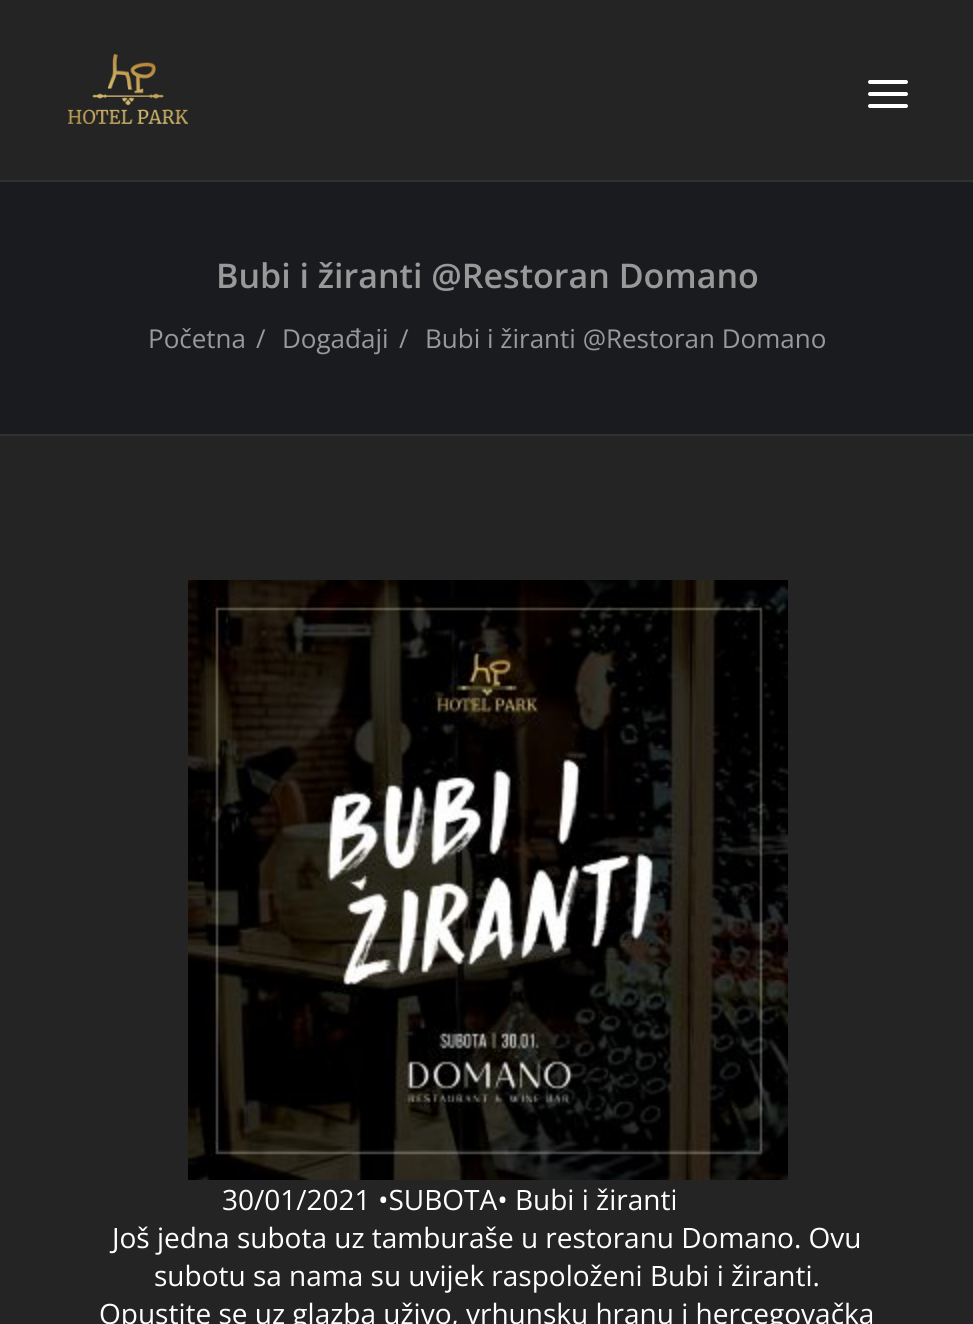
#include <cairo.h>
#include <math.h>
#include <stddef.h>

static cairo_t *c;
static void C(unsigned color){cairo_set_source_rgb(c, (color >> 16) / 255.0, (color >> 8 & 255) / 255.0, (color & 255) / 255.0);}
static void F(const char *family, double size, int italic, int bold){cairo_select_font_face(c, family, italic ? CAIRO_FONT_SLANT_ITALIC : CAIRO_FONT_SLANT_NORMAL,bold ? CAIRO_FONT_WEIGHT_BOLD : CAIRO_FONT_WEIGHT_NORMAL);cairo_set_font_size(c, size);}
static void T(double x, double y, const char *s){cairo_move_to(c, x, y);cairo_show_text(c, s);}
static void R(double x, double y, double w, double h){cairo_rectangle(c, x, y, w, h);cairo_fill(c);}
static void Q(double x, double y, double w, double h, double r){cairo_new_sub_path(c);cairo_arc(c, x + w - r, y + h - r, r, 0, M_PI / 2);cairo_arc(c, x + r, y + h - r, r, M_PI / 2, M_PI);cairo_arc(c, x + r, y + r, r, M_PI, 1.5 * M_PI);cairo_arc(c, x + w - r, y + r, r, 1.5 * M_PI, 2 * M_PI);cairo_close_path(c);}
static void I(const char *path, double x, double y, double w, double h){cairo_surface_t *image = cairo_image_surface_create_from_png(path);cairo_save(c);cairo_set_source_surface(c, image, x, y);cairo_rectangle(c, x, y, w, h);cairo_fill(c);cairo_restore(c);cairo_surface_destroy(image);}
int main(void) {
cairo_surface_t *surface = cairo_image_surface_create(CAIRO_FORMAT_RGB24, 973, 1324);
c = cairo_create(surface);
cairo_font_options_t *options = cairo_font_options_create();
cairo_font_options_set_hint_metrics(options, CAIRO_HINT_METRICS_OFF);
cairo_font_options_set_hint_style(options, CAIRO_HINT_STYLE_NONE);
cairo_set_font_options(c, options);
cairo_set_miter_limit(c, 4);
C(0x242424);
cairo_paint(c);
I("1.png",68,54,120,70);
C(0xffffff);
Q(868,92,40,4,2);
cairo_fill(c);
Q(868,80,40,4,2);
cairo_fill(c);
Q(868,104,40,4,2);
cairo_fill(c);
C(0x191b1e);
R(0,182,973,252);
C(0x303133);
R(0,180,973,2);
R(0,434,973,2);
F("Open Sans SemiBold",34,0,0);
C(0x999999);
T(216,288,"Bubi i žiranti @Restoran Domano");
F("Open Sans",26,0,0);
T(148,348,"Početna");
T(256,348,"/");
T(282,348,"Događaji");
T(399,348,"/");
T(425,348,"Bubi i žiranti @Restoran Domano");
I("2.png",188,580,600,600);
F("Open Sans",28,0,0);
C(0xffffff);
T(222,1210,"30/01/2021 •SUBOTA• Bubi i žiranti");
T(112,1248,"Još jedna subota uz tamburaše u restoranu Domano. Ovu");
T(154,1286,"subotu sa nama su uvijek raspoloženi Bubi i žiranti.");
T(99,1324,"Opustite se uz glazba uživo, vrhunsku hranu i hercegovačka");
cairo_surface_write_to_png(surface, "o.png");
cairo_font_options_destroy(options);
cairo_destroy(c);
cairo_surface_destroy(surface);
return 0;
}
